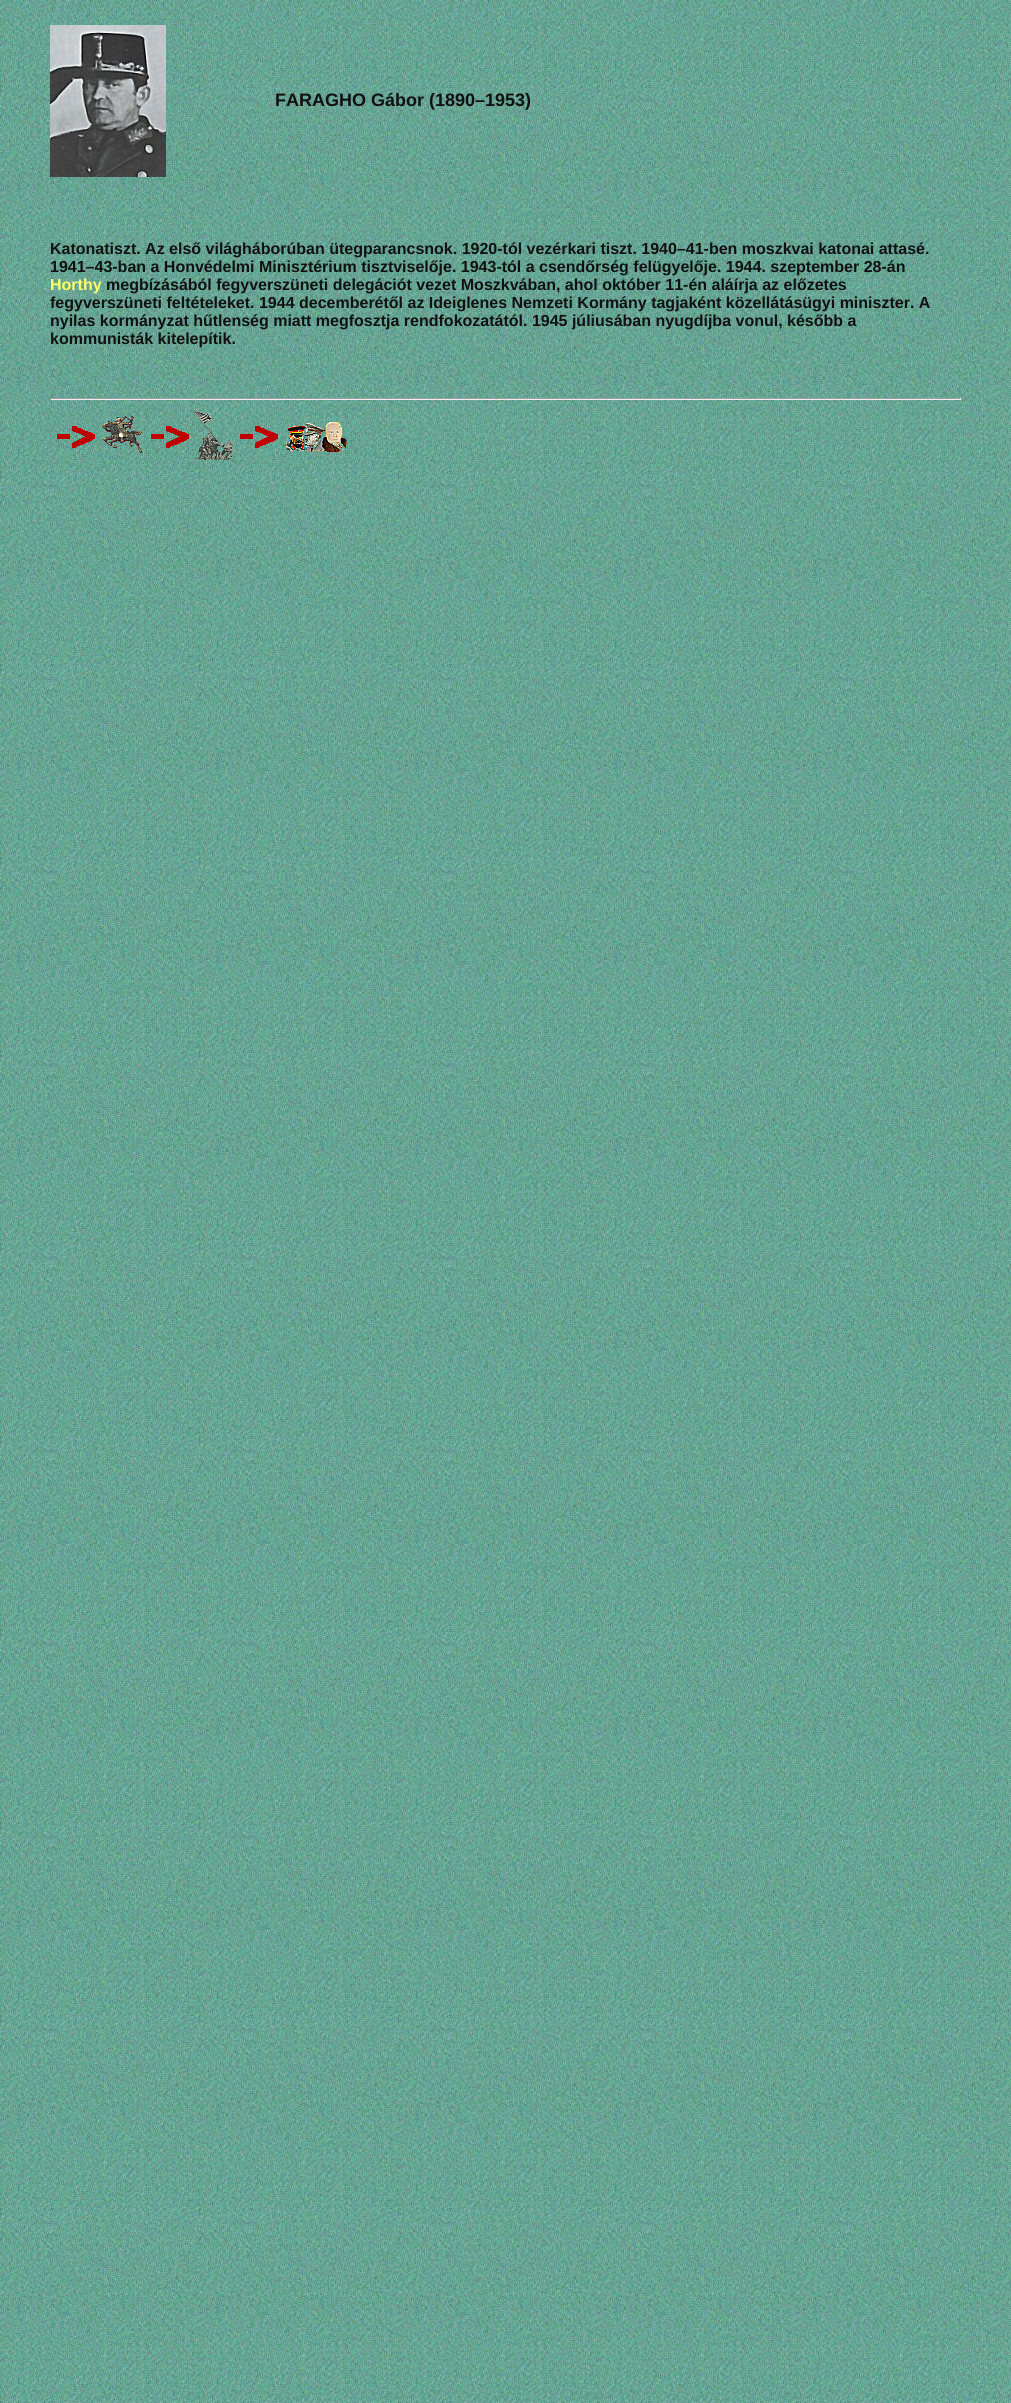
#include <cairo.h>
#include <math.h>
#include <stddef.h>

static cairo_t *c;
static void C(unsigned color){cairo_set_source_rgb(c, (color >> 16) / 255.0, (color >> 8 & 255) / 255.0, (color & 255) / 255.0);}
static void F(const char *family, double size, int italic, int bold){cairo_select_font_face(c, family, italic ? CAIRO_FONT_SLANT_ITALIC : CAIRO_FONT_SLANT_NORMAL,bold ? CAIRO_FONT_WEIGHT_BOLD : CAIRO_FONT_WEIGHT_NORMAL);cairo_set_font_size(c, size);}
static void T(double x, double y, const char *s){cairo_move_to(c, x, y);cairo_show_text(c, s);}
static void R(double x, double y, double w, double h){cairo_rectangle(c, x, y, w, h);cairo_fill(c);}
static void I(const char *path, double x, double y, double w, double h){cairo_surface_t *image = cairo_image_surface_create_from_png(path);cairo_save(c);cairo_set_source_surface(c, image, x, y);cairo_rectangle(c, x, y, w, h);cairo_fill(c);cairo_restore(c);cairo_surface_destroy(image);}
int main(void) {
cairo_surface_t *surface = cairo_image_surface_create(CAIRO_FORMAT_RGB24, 1011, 2403);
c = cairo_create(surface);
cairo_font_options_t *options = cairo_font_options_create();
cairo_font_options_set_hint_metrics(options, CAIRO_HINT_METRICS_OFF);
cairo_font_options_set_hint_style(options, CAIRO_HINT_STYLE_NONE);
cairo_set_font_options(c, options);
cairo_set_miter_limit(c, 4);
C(0xffffff);
cairo_paint(c);
I("1.png",0,0,1011,2403);
I("2.png",50,25,116,152);
F("Liberation Sans",18,0,1);
C(0x111111);
T(275,106,"FARAGHO Gábor (1890–1953)");
F("Liberation Sans",16,0,1);
T(50,254,"Katonatiszt. Az első világháborúban ütegparancsnok. 1920-tól vezérkari tiszt. 1940–41-ben moszkvai katonai attasé.");
T(50,272,"1941–43-ban a Honvédelmi Minisztérium tisztviselője. 1943-tól a csendőrség felügyelője. 1944. szeptember 28-án");
C(0xffff66);
T(50,290,"Horthy");
C(0x111111);
T(106,290,"megbízásából fegyverszüneti delegációt vezet Moszkvában, ahol október 11-én aláírja az előzetes");
T(50,308,"fegyverszüneti feltételeket. 1944 decemberétől az Ideiglenes Nemzeti Kormány tagjaként közellátásügyi miniszter. A");
T(50,326,"nyilas kormányzat hűtlenség miatt megfosztja rendfokozatától. 1945 júliusában nyugdíjba vonul, később a");
T(50,344,"kommunisták kitelepítik.");
C(0x9f9f9f);
R(50,398,911,1);
C(0xeeeeee);
R(960,398,1,2);
R(50,399,911,1);
C(0x9f9f9f);
R(50,398,1,2);
I("3.png",57,426,38,22);
I("4.png",102,416,40,37);
I("5.png",151,426,38,22);
I("6.png",194,411,39,49);
I("7.png",240,426,38,22);
I("8.png",285,422,62,30);
cairo_surface_write_to_png(surface, "o.png");
cairo_font_options_destroy(options);
cairo_destroy(c);
cairo_surface_destroy(surface);
return 0;
}
